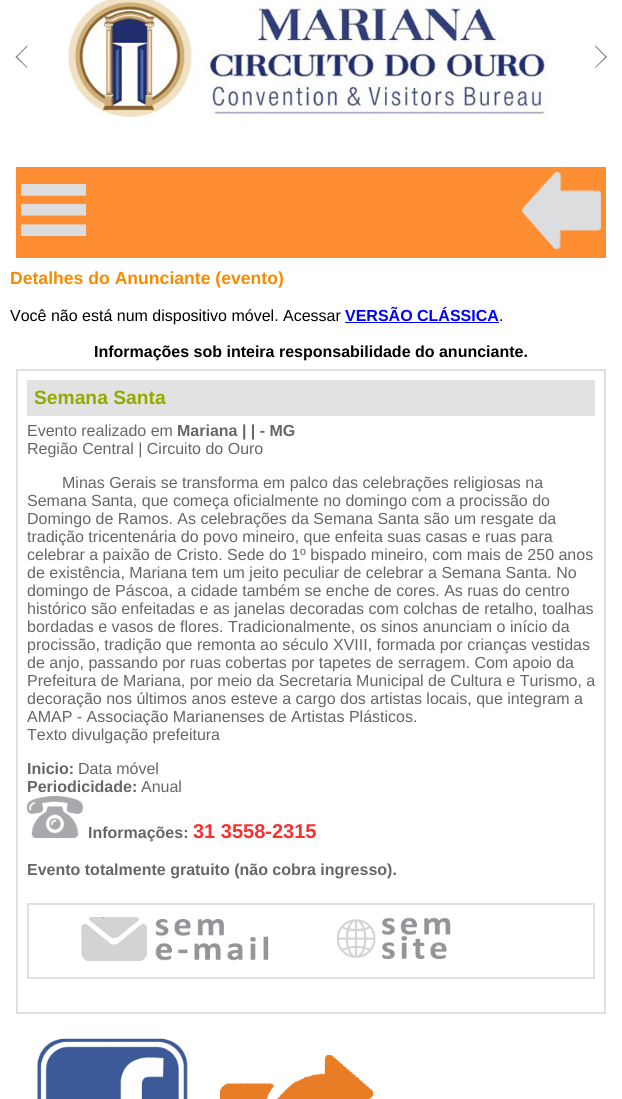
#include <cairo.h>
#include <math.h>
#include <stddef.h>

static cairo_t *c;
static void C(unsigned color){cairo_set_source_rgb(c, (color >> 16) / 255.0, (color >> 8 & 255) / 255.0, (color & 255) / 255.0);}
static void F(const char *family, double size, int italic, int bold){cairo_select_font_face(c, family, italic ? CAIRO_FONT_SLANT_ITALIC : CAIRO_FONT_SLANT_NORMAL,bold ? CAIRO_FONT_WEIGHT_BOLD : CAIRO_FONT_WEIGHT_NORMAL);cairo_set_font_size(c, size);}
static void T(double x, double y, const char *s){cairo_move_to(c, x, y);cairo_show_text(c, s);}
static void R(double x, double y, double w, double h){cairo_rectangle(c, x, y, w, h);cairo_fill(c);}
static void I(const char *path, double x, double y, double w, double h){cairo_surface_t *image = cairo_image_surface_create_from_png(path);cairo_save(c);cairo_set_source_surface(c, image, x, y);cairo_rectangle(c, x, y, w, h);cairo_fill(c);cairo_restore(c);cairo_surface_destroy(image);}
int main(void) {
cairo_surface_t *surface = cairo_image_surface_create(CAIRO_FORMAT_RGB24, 622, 1099);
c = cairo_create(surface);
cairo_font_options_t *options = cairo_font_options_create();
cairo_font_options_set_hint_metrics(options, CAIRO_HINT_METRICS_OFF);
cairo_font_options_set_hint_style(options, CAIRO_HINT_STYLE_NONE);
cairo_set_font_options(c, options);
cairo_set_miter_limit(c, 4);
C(0xffffff);
cairo_paint(c);
C(0x808080);
cairo_new_path(c);
cairo_move_to(c,15.5,57);
cairo_line_to(c,27,45.5);
cairo_line_to(c,27.5,46.5);
cairo_line_to(c,16.5,57.5);
cairo_close_path(c);
cairo_fill(c);
cairo_new_path(c);
cairo_move_to(c,15.5,57);
cairo_line_to(c,16.5,56);
cairo_line_to(c,27.5,67.5);
cairo_line_to(c,27,68);
cairo_close_path(c);
cairo_fill(c);
I("1.png",67,0,482,121);
cairo_new_path(c);
cairo_move_to(c,595,46.5);
cairo_line_to(c,595.5,45.5);
cairo_line_to(c,607,57);
cairo_line_to(c,606,57.5);
cairo_close_path(c);
cairo_fill(c);
cairo_new_path(c);
cairo_move_to(c,595,67.5);
cairo_line_to(c,606,56);
cairo_line_to(c,607,57);
cairo_line_to(c,595.5,68);
cairo_close_path(c);
cairo_fill(c);
C(0xff8e32);
R(16,167,590,91);
I("2.png",21,184,65,52);
I("3.png",522,172,79,77);
F("Liberation Sans",17.6,0,1);
C(0xf68b00);
T(10,284,"Detalhes do Anunciante (evento)");
F("Liberation Sans",16,0,0);
C(0x000000);
T(10,321,"Você não está num dispositivo móvel. Acessar");
F("Liberation Sans",16,0,1);
C(0x0000ff);
T(345,321,"VERSÃO CLÁSSICA");
R(345,322,154,1);
F("Liberation Sans",16,0,0);
C(0x000000);
T(499,321,".");
F("Liberation Sans",16,0,1);
T(94,357,"Informações sob inteira responsabilidade do anunciante.");
cairo_rectangle(c,17,370,588,643);
C(0xe0e0e0);
cairo_stroke(c);
C(0xe2e2e2);
R(27,380,568,36);
F("Liberation Sans",19.25,0,1);
C(0x93a802);
T(34,404,"Semana Santa");
F("Liberation Sans",16,0,0);
C(0x666666);
T(27,436,"Evento realizado em");
F("Liberation Sans",16,0,1);
T(177,436,"Mariana | | - MG");
F("Liberation Sans",16,0,0);
T(27,454,"Região Central | Circuito do Ouro");
T(62,488,"Minas Gerais se transforma em palco das celebrações religiosas na");
T(27,506,"Semana Santa, que começa oficialmente no domingo com a procissão do");
T(27,524,"Domingo de Ramos. As celebrações da Semana Santa são um resgate da");
T(27,542,"tradição tricentenária do povo mineiro, que enfeita suas casas e ruas para");
T(27,560,"celebrar a paixão de Cristo. Sede do 1º bispado mineiro, com mais de 250 anos");
T(27,578,"de existência, Mariana tem um jeito peculiar de celebrar a Semana Santa. No");
T(27,596,"domingo de Páscoa, a cidade também se enche de cores. As ruas do centro");
T(27,614,"histórico são enfeitadas e as janelas decoradas com colchas de retalho, toalhas");
T(27,632,"bordadas e vasos de flores. Tradicionalmente, os sinos anunciam o início da");
T(27,650,"procissão, tradição que remonta ao século XVIII, formada por crianças vestidas");
T(27,668,"de anjo, passando por ruas cobertas por tapetes de serragem. Com apoio da");
T(27,686,"Prefeitura de Mariana, por meio da Secretaria Municipal de Cultura e Turismo, a");
T(27,704,"decoração nos últimos anos esteve a cargo dos artistas locais, que integram a");
T(27,722,"AMAP - Associação Marianenses de Artistas Plásticos.");
T(27,740,"Texto divulgação prefeitura");
F("Liberation Sans",16,0,1);
T(27,774,"Inicio:");
F("Liberation Sans",16,0,0);
T(78,774,"Data móvel");
F("Liberation Sans",16,0,1);
T(27,792,"Periodicidade:");
F("Liberation Sans",16,0,0);
T(141,792,"Anual");
I("4.png",27,796,56,42);
F("Liberation Sans",16,0,1);
T(88,838,"Informações:");
F("Liberation Sans",20,0,1);
C(0xf93030);
T(193,838,"31 3558-2315");
F("Liberation Sans",16,0,1);
C(0x666666);
T(27,875,"Evento totalmente gratuito (não cobra ingresso).");
cairo_rectangle(c,28,904,566,74);
C(0xe0e0e0);
cairo_stroke(c);
I("5.png",81,917,188,44);
I("6.png",337,917,114,42);
I("7.png",37,1038,151,61);
I("8.png",220,1055,153,44);
cairo_surface_write_to_png(surface, "o.png");
cairo_font_options_destroy(options);
cairo_destroy(c);
cairo_surface_destroy(surface);
return 0;
}
